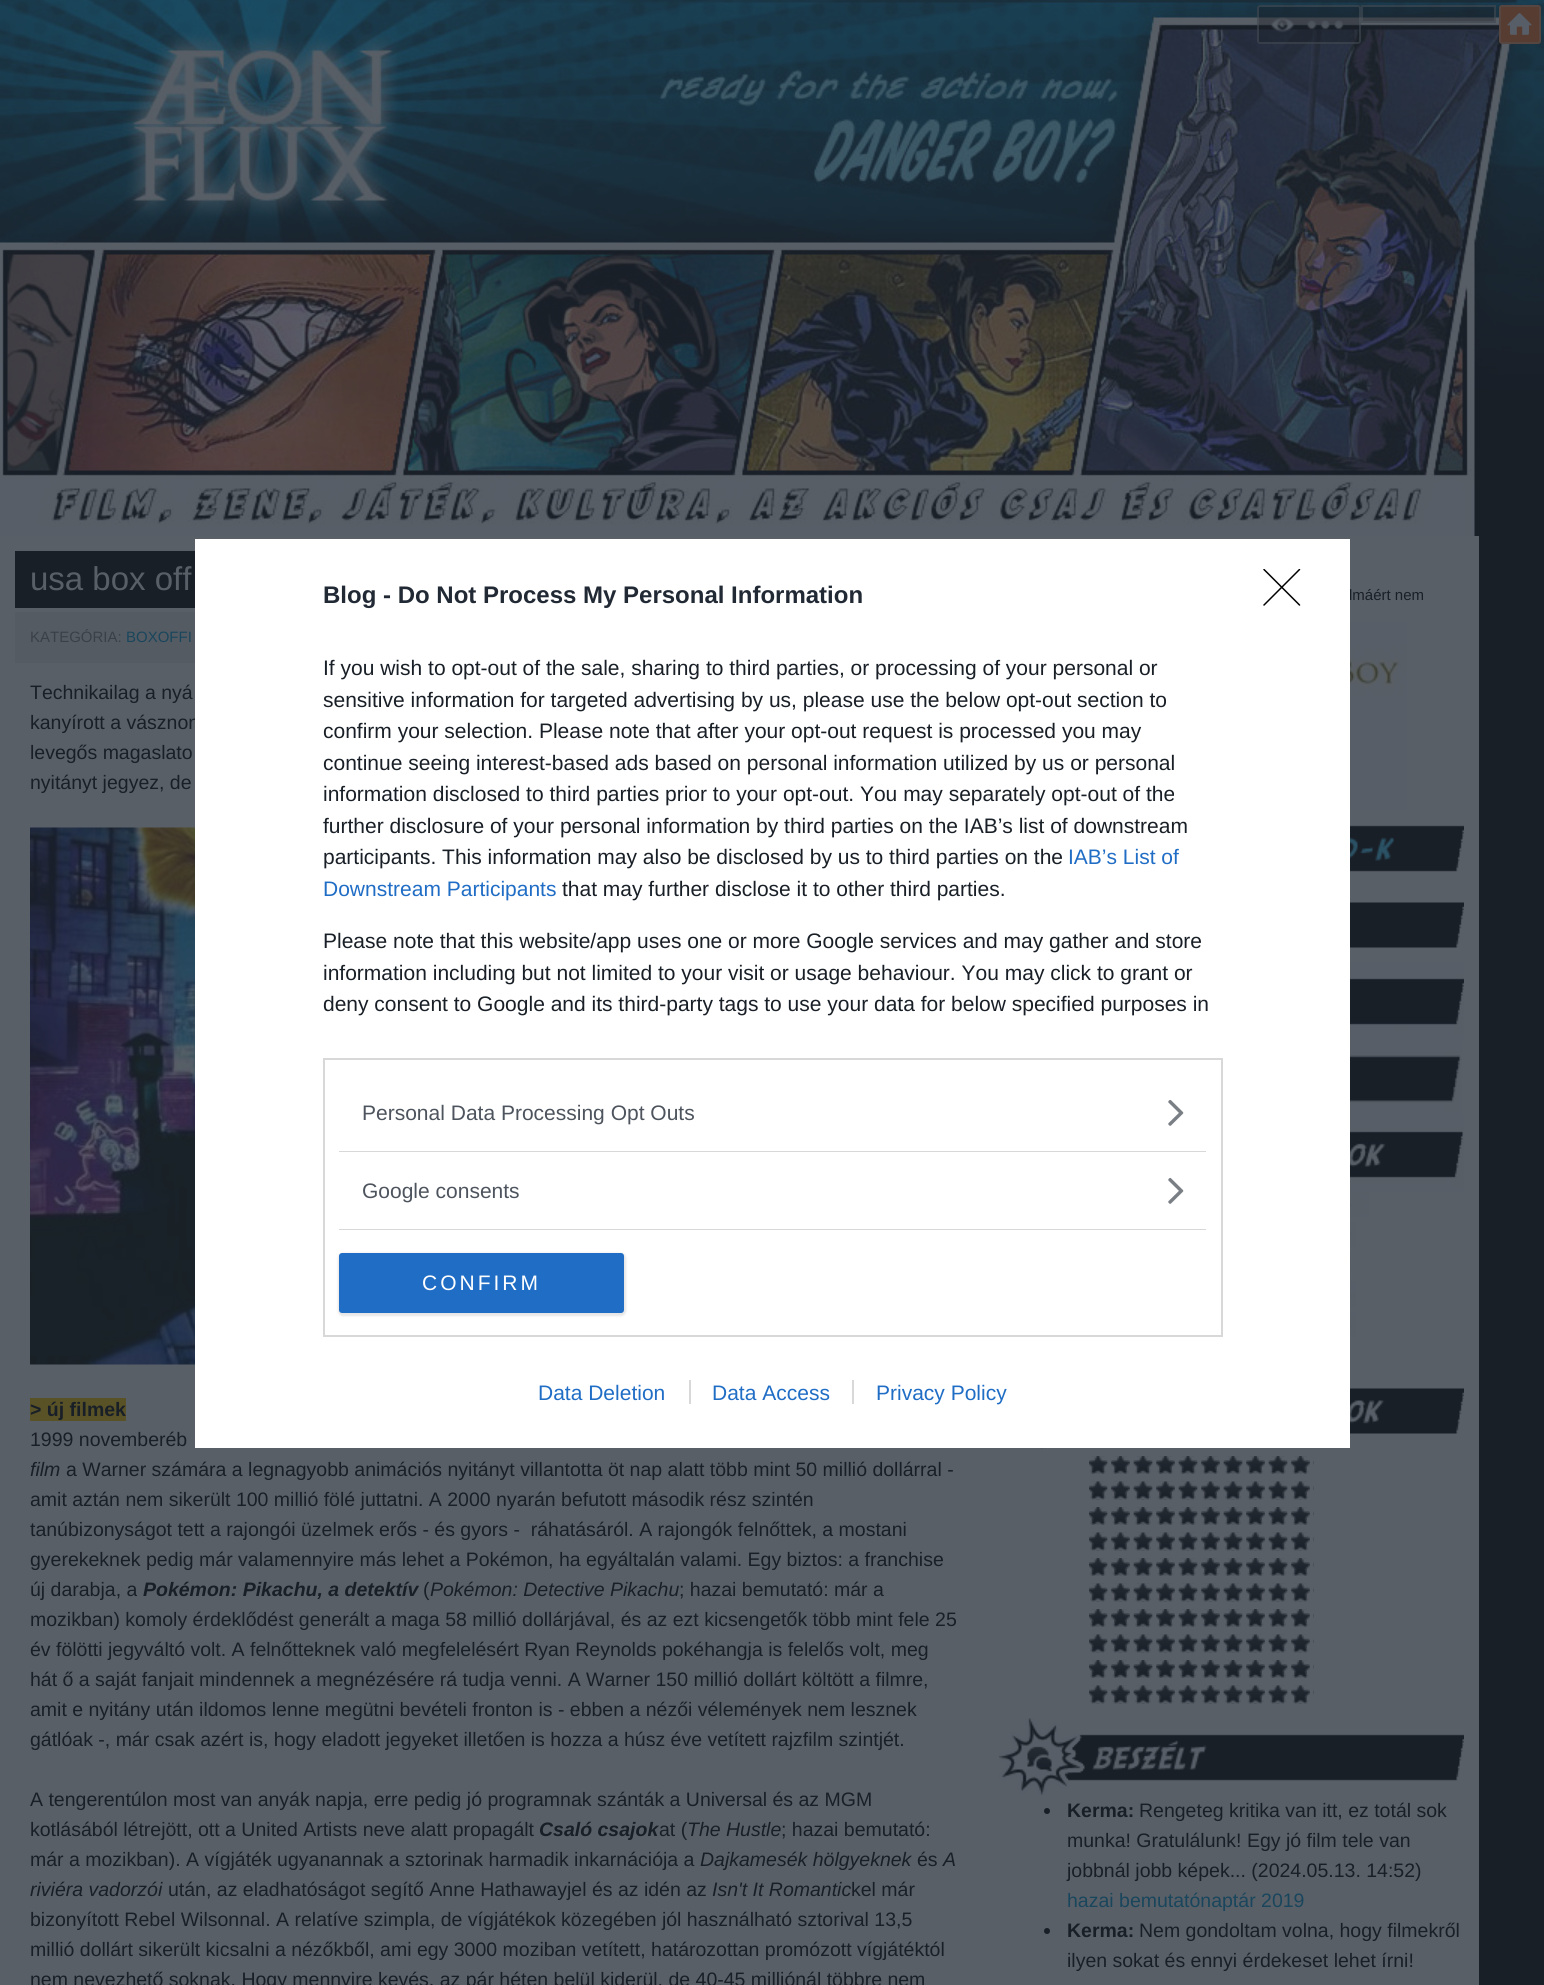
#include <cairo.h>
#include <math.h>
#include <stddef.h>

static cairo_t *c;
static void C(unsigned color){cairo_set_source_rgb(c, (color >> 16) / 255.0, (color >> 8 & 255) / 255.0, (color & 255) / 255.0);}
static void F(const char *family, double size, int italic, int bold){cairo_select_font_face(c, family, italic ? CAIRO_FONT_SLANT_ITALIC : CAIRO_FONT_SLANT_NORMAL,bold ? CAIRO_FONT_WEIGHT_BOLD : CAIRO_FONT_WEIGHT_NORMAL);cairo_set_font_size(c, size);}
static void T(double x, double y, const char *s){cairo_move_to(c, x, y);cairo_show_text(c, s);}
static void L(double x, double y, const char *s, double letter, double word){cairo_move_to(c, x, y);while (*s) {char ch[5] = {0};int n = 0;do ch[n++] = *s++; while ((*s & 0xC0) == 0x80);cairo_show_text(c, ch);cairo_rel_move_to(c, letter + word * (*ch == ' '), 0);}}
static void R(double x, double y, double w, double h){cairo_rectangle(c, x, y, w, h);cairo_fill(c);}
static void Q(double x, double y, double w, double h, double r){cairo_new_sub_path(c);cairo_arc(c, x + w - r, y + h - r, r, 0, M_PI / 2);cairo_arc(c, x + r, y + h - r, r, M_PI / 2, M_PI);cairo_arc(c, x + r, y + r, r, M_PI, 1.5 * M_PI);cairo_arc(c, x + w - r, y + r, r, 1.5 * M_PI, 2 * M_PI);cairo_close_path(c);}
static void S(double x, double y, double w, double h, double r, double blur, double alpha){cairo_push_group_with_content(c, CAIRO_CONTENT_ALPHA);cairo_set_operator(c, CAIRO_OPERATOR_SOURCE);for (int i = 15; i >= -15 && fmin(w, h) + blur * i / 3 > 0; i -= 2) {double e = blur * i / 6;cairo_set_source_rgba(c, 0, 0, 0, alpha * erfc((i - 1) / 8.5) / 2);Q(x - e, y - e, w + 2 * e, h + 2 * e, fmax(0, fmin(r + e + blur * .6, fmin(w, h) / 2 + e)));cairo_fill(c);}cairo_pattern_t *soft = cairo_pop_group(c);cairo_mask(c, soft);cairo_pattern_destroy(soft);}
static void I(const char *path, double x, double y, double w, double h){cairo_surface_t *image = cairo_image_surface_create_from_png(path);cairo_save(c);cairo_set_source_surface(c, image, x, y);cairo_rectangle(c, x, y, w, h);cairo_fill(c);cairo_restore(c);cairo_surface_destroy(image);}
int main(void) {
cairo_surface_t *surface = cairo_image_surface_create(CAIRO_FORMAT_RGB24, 1544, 1985);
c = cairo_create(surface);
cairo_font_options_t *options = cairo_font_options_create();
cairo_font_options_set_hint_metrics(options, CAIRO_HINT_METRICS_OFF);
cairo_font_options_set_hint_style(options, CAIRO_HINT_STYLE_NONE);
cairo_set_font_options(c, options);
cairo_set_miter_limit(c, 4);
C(0x191f27);
cairo_paint(c);
I("1.png",0,0,1544,537);
cairo_set_source_rgba(c,0.098,0.122,0.153,0.4);
Q(1257,5,104,39,3);
cairo_fill(c);
Q(1258,6,102,37,2);
cairo_set_source_rgba(c,0.349,0.373,0.404,0.4);
cairo_stroke(c);
I("2.png",1270,17,25,16);
I("3.png",1307,20,37,10);
cairo_set_source_rgba(c,0.098,0.122,0.153,0.4);
R(1361,5,135,18);
cairo_rectangle(c,1362,6,133,16);
cairo_set_source_rgba(c,0.349,0.373,0.404,0.4);
cairo_stroke(c);
C(0x563c31);
Q(1499,5,42,39,3);
cairo_fill(c);
Q(1500,6,40,37,2);
cairo_set_source_rgba(c,0.349,0.373,0.404,0.3);
cairo_stroke(c);
I("4.png",1507,13,25,22);
C(0x595f67);
R(0,536,1479,1449);
C(0x191f27);
R(15,603,180,5);
R(15,551,5,57);
R(20,551,175,52);
F("Liberation Sans",33,0,0);
C(0x595f67);
T(30,590,"usa box off");
C(0x555b63);
R(15,612,180,51);
F("Liberation Sans",15,0,0);
C(0x3a4048);
T(30,642,"KATEGÓRIA:");
C(0x19465c);
T(126,642,"BOXOFFI");
F("Liberation Sans",19.5,0,0);
C(0x191f27);
T(30,699,"Technikailag a nyá");
T(30,729,"kanyírott a vásznon");
T(30,759,"levegős magaslato");
T(30,789,"nyitányt jegyez, de");
I("5.png",30,827,165,538);
C(0x595227);
R(30,1398,96,23);
F("Liberation Sans",19.5,0,1);
C(0x191f27);
T(30,1416,"> új filmek");
F("Liberation Sans",19.5,0,0);
T(30,1446,"1999 novemberéb");
F("Liberation Sans",19.5,1,0);
T(30,1476,"film");
F("Liberation Sans",19.5,0,0);
T(66,1476,"a Warner számára a legnagyobb animációs nyitányt villantotta öt nap alatt több mint 50 millió dollárral -");
T(30,1506,"amit aztán nem sikerült 100 millió fölé juttatni. A 2000 nyarán befutott második rész szintén");
T(30,1536,"tanúbizonyságot tett a rajongói üzelmek erős - és gyors -  ráhatásáról. A rajongók felnőttek, a mostani");
T(30,1566,"gyerekeknek pedig már valamennyire más lehet a Pokémon, ha egyáltalán valami. Egy biztos: a franchise");
T(30,1596,"új darabja, a");
F("Liberation Sans",19.5,1,1);
T(143,1596,"Pokémon: Pikachu, a detektív");
F("Liberation Sans",19.5,0,0);
T(423,1596,"(");
F("Liberation Sans",19.5,1,0);
T(430,1596,"Pokémon: Detective Pikachu");
F("Liberation Sans",19.5,0,0);
T(679,1596,"; hazai bemutató: már a");
T(30,1626,"mozikban) komoly érdeklődést generált a maga 58 millió dollárjával, és az ezt kicsengetők több mint fele 25");
T(30,1656,"év fölötti jegyváltó volt. A felnőtteknek való megfelelésért Ryan Reynolds pokéhangja is felelős volt, meg");
T(30,1686,"hát ő a saját fanjait mindennek a megnézésére rá tudja venni. A Warner 150 millió dollárt költött a filmre,");
T(30,1716,"amit e nyitány után ildomos lenne megütni bevételi fronton is - ebben a nézői vélemények nem lesznek");
T(30,1746,"gátlóak -, már csak azért is, hogy eladott jegyeket illetően is hozza a húsz éve vetített rajzfilm szintjét.");
T(30,1806,"A tengerentúlon most van anyák napja, erre pedig jó programnak szánták a Universal és az MGM");
T(30,1836,"kotlásából létrejött, ott a United Artists neve alatt propagált");
F("Liberation Sans",19.5,1,1);
T(539,1836,"Csaló csajok");
F("Liberation Sans",19.5,0,0);
T(659,1836,"at (");
F("Liberation Sans",19.5,1,0);
T(687,1836,"The Hustle");
F("Liberation Sans",19.5,0,0);
T(781,1836,"; hazai bemutató:");
T(30,1866,"már a mozikban). A vígjáték ugyanannak a sztorinak harmadik inkarnációja a");
F("Liberation Sans",19.5,1,0);
T(700,1866,"Dajkamesék hölgyeknek");
F("Liberation Sans",19.5,0,0);
T(917,1866,"és");
F("Liberation Sans",19.5,1,0);
T(943,1866,"A");
T(30,1896,"riviéra vadorzói");
F("Liberation Sans",19.5,0,0);
T(168,1896,"után, az eladhatóságot segítő Anne Hathawayjel és az idén az");
F("Liberation Sans",19.5,1,0);
T(712,1896,"Isn't It Romantic");
F("Liberation Sans",19.5,0,0);
T(851,1896,"kel már");
T(30,1926,"bizonyított Rebel Wilsonnal. A relatíve szimpla, de vígjátékok közegében jól használható sztorival 13,5");
T(30,1956,"millió dollárt sikerült kicsalni a nézőkből, ami egy 3000 moziban vetített, határozottan promózott vígjátéktól");
T(30,1986,"nem nevezhető soknak. Hogy mennyire kevés, az pár héten belül kiderül, de 40-45 milliónál többre nem");
F("Liberation Sans",15,0,0);
T(1349,600,"lmáért nem");
I("6.png",1350,622,57,188);
I("7.png",1350,825,114,47);
I("8.png",1350,902,114,46);
I("9.png",1350,962,114,77);
I("10.png",1350,1039,112,77);
I("11.png",1350,1115,114,77);
I("12.png",1350,1192,19,25);
I("13.png",1350,1222,6,25);
I("14.png",1350,1252,1,30);
I("15.png",1350,1282,6,25);
I("16.png",1350,1312,6,25);
I("17.png",1021,1388,443,61);
I("18.png",1089,1456,225,18);
I("19.png",1089,1456,225,18);
I("20.png",1089,1481,225,19);
I("21.png",1089,1481,225,19);
I("22.png",1089,1507,225,18);
I("23.png",1089,1507,225,18);
I("24.png",1089,1532,225,19);
I("25.png",1089,1532,225,19);
I("26.png",1089,1558,225,18);
I("27.png",1089,1558,225,18);
I("28.png",1089,1583,225,19);
I("25.png",1089,1583,225,19);
I("29.png",1089,1609,225,18);
I("30.png",1089,1609,225,18);
I("31.png",1089,1634,225,19);
I("25.png",1089,1634,225,19);
I("32.png",1089,1660,225,18);
I("33.png",1089,1660,225,18);
I("34.png",1089,1685,225,19);
I("25.png",1089,1685,225,19);
I("35.png",999,1718,465,77);
cairo_arc(c,1047,1811,3,0,2 * M_PI);
cairo_fill(c);
F("Liberation Sans",19.5,0,1);
T(1067,1817,"Kerma:");
F("Liberation Sans",19.5,0,0);
T(1139,1817,"Rengeteg kritika van itt, ez totál sok");
T(1067,1847,"munka! Gratulálunk! Egy jó film tele van");
T(1067,1877,"jobbnál jobb képek... (2024.05.13. 14:52)");
C(0x19465c);
T(1067,1907,"hazai bemutatónaptár 2019");
C(0x191f27);
cairo_new_path(c);
cairo_arc(c,1047,1931,3,0,2 * M_PI);
cairo_fill(c);
F("Liberation Sans",19.5,0,1);
T(1067,1937,"Kerma:");
F("Liberation Sans",19.5,0,0);
T(1139,1937,"Nem gondoltam volna, hogy filmekről");
T(1067,1967,"ilyen sokat és ennyi érdekeset lehet írni!");
C(0xffffff);
R(195,539,1155,909);
F("Liberation Sans",24,0,1);
C(0x212934);
T(323,603,"Blog - Do Not Process My Personal Information");
F("Liberation Sans",21,0,0);
C(0x191f27);
T(323,675,"If you wish to opt-out of the sale, sharing to third parties, or processing of your personal or");
T(323,707,"sensitive information for targeted advertising by us, please use the below opt-out section to");
T(323,738,"confirm your selection. Please note that after your opt-out request is processed you may");
T(323,770,"continue seeing interest-based ads based on personal information utilized by us or personal");
T(323,801,"information disclosed to third parties prior to your opt-out. You may separately opt-out of the");
T(323,833,"further disclosure of your personal information by third parties on the IAB’s list of downstream");
T(323,864,"participants. This information may also be disclosed by us to third parties on the");
C(0x206dc5);
T(1068,864,"IAB’s List of");
T(323,896,"Downstream Participants");
C(0x191f27);
T(562,896,"that may further disclose it to other third parties.");
T(323,948,"Please note that this website/app uses one or more Google services and may gather and store");
T(323,980,"information including but not limited to your visit or usage behaviour. You may click to grant or");
T(323,1011,"deny consent to Google and its third-party tags to use your data for below specified purposes in");
cairo_rectangle(c,324,1059,898,277);
C(0xd8d8d8);
cairo_stroke(c);
R(339,1151,867,1);
C(0x4d545d);
T(362,1120,"Personal Data Processing Opt Outs");
I("36.png",1168,1099,16,27);
C(0xd8d8d8);
R(339,1229,867,1);
C(0x4d545d);
T(362,1198,"Google consents");
I("36.png",1168,1177,16,27);
C(0x000000);
S(338,1253,288,63,5,1,.1);
C(0x206dc5);
Q(339,1253,285,60,3);
cairo_fill(c);
C(0xffffff);
L(422,1290,"CONFIRM",3,0);
cairo_save(c);
cairo_rectangle(c,1263,569,38,37);
cairo_clip(c);
cairo_new_path(c);
cairo_move_to(c,1264,569.5);
cairo_line_to(c,1299.5,605);
cairo_move_to(c,1299.5,569.5);
cairo_line_to(c,1264,605);
C(0x000000);
cairo_set_line_width(c,1.5);
cairo_set_line_cap(c,CAIRO_LINE_CAP_ROUND);
cairo_set_line_join(c,CAIRO_LINE_JOIN_ROUND);
cairo_stroke(c);
cairo_restore(c);
C(0x206dc5);
T(538,1400,"Data Deletion");
T(712,1400,"Data Access");
C(0xd8d8d8);
R(689,1380,2,24);
C(0x206dc5);
T(876,1400,"Privacy Policy");
C(0xd8d8d8);
R(852,1380,2,24);
cairo_surface_write_to_png(surface, "o.png");
cairo_font_options_destroy(options);
cairo_destroy(c);
cairo_surface_destroy(surface);
return 0;
}
